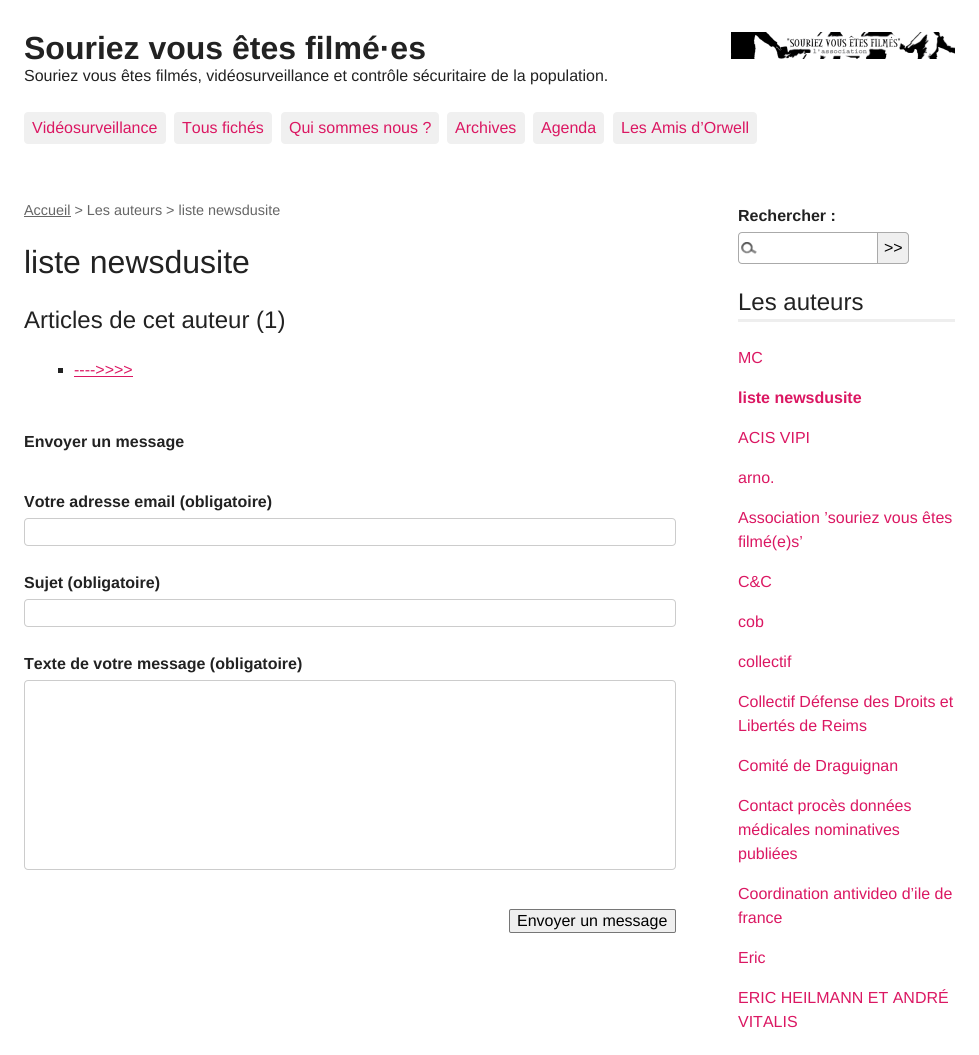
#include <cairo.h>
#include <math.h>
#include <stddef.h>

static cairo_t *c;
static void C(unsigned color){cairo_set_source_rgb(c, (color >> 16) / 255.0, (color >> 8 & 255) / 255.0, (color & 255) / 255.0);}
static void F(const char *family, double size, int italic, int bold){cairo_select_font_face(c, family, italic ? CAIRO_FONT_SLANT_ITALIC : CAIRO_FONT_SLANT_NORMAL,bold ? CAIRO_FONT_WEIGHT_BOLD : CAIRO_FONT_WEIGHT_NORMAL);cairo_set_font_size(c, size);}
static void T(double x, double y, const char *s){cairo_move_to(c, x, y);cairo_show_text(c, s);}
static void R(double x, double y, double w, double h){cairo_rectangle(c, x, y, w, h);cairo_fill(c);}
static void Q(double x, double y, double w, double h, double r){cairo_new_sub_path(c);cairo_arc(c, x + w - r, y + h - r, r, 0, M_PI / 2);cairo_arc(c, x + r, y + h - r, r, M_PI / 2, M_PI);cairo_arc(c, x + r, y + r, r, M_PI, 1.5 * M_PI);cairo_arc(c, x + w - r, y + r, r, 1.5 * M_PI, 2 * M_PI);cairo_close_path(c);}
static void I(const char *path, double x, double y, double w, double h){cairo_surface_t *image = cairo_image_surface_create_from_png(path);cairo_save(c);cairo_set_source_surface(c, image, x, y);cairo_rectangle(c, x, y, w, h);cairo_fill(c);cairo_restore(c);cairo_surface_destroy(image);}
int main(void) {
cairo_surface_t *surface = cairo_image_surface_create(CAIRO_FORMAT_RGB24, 979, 1055);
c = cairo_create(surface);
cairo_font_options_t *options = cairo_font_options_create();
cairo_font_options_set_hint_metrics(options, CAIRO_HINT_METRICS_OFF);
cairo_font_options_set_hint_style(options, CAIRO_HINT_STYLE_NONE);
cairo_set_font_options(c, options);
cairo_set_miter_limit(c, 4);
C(0xffffff);
cairo_paint(c);
F("Liberation Sans",32,0,1);
C(0x222222);
T(24,59,"Souriez vous êtes filmé·es");
I("1.png",731,32,224,27);
F("Liberation Sans",16,0,0);
T(24,81,"Souriez vous êtes filmés, vidéosurveillance et contrôle sécuritaire de la population.");
C(0xf0f0f0);
Q(24,112,142,32,4);
cairo_fill(c);
C(0xdb1762);
T(32,133,"Vidéosurveillance");
C(0xf0f0f0);
Q(174,112,98,32,4);
cairo_fill(c);
C(0xdb1762);
T(182,133,"Tous fichés");
C(0xf0f0f0);
Q(281,112,158,32,4);
cairo_fill(c);
C(0xdb1762);
T(289,133,"Qui sommes nous ?");
C(0xf0f0f0);
Q(447,112,78,32,4);
cairo_fill(c);
C(0xdb1762);
T(455,133,"Archives");
C(0xf0f0f0);
Q(533,112,71,32,4);
cairo_fill(c);
C(0xdb1762);
T(541,133,"Agenda");
C(0xf0f0f0);
Q(613,112,144,32,4);
cairo_fill(c);
C(0xdb1762);
T(621,133,"Les Amis d’Orwell");
F("Liberation Sans",14.4,0,0);
C(0x666666);
T(24,215,"Accueil > Les auteurs > liste newsdusite");
R(24,216,47,1);
F("Liberation Sans",32,0,0);
C(0x222222);
T(24,273,"liste newsdusite");
F("Liberation Sans",24,0,0);
T(24,328,"Articles de cet auteur (1)");
R(58,368,5,5);
F("Liberation Sans",16,0,0);
C(0xdb1762);
T(74,375,"---->>>>");
R(74,376,59,1);
F("Liberation Sans",16,0,1);
C(0x222222);
T(24,447,"Envoyer un message");
T(24,507,"Votre adresse email (obligatoire)");
Q(24.5,518.5,651,27,3.5);
C(0xcccccc);
cairo_set_line_width(c,1);
cairo_stroke(c);
C(0x222222);
T(24,588,"Sujet (obligatoire)");
Q(24.5,599.5,651,27,3.5);
C(0xcccccc);
cairo_stroke(c);
C(0x222222);
T(24,669,"Texte de votre message (obligatoire)");
Q(24.5,680.5,651,189,3.5);
C(0xcccccc);
cairo_stroke(c);
C(0xefefef);
Q(509.5,909.5,166,23,1.5);
cairo_fill_preserve(c);
C(0x767676);
cairo_stroke(c);
F("Liberation Sans",16,0,0);
C(0x000000);
T(517,926,"Envoyer un message");
F("Liberation Sans",16,0,1);
C(0x222222);
T(738,221,"Rechercher :");
I("2.png",741,242,16,12);
cairo_new_path(c);
cairo_move_to(c,742,232.5);
cairo_line_to(c,877.5,232.5);
cairo_line_to(c,877.5,263.5);
cairo_line_to(c,742,263.5);
cairo_curve_to(c,740,263.5,738.5,262,738.5,260);
cairo_line_to(c,738.5,236);
cairo_curve_to(c,738.5,234,740,232.5,742,232.5);
cairo_close_path(c);
C(0xaaaaaa);
cairo_stroke(c);
C(0xefefef);
cairo_new_path(c);
cairo_move_to(c,878,232);
cairo_line_to(c,905,232);
cairo_curve_to(c,907,232,909,234,909,236);
cairo_line_to(c,909,260);
cairo_curve_to(c,909,262,907,264,905,264);
cairo_line_to(c,878,264);
cairo_close_path(c);
cairo_fill(c);
C(0xaaaaaa);
cairo_set_fill_rule(c,CAIRO_FILL_RULE_EVEN_ODD);
cairo_new_path(c);
cairo_move_to(c,878,232);
cairo_line_to(c,905,232);
cairo_curve_to(c,907,232,909,234,909,236);
cairo_line_to(c,909,260);
cairo_curve_to(c,909,262,907,264,905,264);
cairo_line_to(c,878,264);
cairo_close_path(c);
cairo_move_to(c,878,233);
cairo_line_to(c,905,233);
cairo_curve_to(c,906.5,233,908,234.5,908,236);
cairo_line_to(c,908,260);
cairo_curve_to(c,908,261.5,906.5,263,905,263);
cairo_line_to(c,878,263);
cairo_close_path(c);
cairo_fill(c);
F("Liberation Sans",16,0,0);
C(0x000000);
T(884,253,">>");
C(0xeeeeee);
R(738,319,217,3);
F("Liberation Sans",24,0,0);
C(0x222222);
T(738,310,"Les auteurs");
F("Liberation Sans",16,0,0);
C(0xdb1762);
T(738,363,"MC");
F("Liberation Sans",16,0,1);
T(738,403,"liste newsdusite");
F("Liberation Sans",16,0,0);
T(738,443,"ACIS VIPI");
T(738,483,"arno.");
T(738,523,"Association ’souriez vous êtes");
T(738,547,"filmé(e)s’");
T(738,587,"C&C");
T(738,627,"cob");
T(738,667,"collectif");
T(738,707,"Collectif Défense des Droits et");
T(738,731,"Libertés de Reims");
T(738,771,"Comité de Draguignan");
T(738,811,"Contact procès données");
T(738,835,"médicales nominatives");
T(738,859,"publiées");
T(738,899,"Coordination antivideo d’ile de");
T(738,923,"france");
T(738,963,"Eric");
T(738,1003,"ERIC HEILMANN ET ANDRÉ");
T(738,1027,"VITALIS");
cairo_surface_write_to_png(surface, "o.png");
cairo_font_options_destroy(options);
cairo_destroy(c);
cairo_surface_destroy(surface);
return 0;
}
